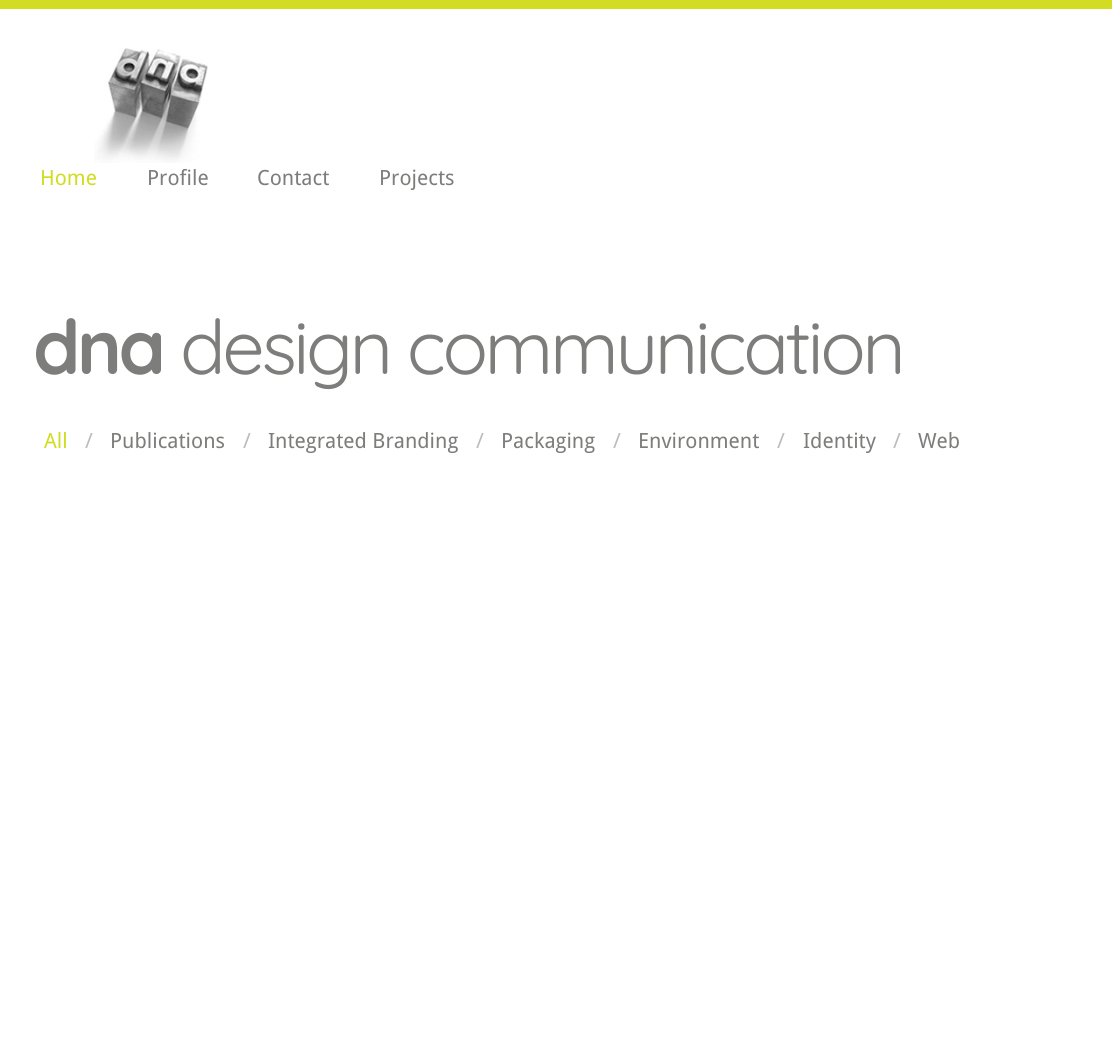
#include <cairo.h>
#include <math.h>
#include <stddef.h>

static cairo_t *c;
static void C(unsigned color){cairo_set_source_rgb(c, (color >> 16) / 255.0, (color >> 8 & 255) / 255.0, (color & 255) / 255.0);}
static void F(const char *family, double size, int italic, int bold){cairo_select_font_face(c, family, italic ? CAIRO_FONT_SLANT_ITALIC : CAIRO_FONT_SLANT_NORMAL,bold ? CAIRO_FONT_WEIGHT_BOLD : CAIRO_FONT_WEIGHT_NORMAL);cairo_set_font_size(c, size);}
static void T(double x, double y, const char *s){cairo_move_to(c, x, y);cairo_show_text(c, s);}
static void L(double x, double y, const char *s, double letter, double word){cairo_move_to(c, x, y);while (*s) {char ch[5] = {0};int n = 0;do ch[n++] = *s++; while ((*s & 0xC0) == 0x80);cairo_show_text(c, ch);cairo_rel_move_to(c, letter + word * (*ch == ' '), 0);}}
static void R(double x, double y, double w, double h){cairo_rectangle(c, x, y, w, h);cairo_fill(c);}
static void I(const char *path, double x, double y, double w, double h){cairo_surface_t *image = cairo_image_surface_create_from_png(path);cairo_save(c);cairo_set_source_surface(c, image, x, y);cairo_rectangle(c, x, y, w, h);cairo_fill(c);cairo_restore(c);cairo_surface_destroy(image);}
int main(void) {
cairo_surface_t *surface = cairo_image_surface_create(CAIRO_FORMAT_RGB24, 1112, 1045);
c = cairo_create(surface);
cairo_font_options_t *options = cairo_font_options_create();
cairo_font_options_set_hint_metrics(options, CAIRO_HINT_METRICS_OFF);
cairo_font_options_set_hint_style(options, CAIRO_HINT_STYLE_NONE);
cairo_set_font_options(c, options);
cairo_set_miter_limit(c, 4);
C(0xffffff);
cairo_paint(c);
C(0xd1dc22);
R(0,0,1112,9);
I("1.png",94,48,114,115);
F("Droid Sans",21,0,0);
T(40,185,"Home");
C(0x7d7d7b);
T(147,185,"Profile");
T(257,185,"Contact");
T(379,185,"Projects");
F("Quicksand",75.5,0,1);
L(33,374,"dna",-3.5,0);
F("Quicksand",75.5,0,0);
L(180,374,"design communication",-3.5,0);
F("Droid Sans",21,0,0);
C(0xd1dc22);
T(44,448,"All");
C(0xbcbcbc);
T(85,448,"/");
C(0x7d7d7b);
T(110,448,"Publications");
C(0xbcbcbc);
T(243,448,"/");
C(0x7d7d7b);
T(268,448,"Integrated Branding");
C(0xbcbcbc);
T(476,448,"/");
C(0x7d7d7b);
T(501,448,"Packaging");
C(0xbcbcbc);
T(613,448,"/");
C(0x7d7d7b);
T(638,448,"Environment");
C(0xbcbcbc);
T(777,448,"/");
C(0x7d7d7b);
T(803,448,"Identity");
C(0xbcbcbc);
T(893,448,"/");
C(0x7d7d7b);
T(918,448,"Web");
cairo_surface_write_to_png(surface, "o.png");
cairo_font_options_destroy(options);
cairo_destroy(c);
cairo_surface_destroy(surface);
return 0;
}
